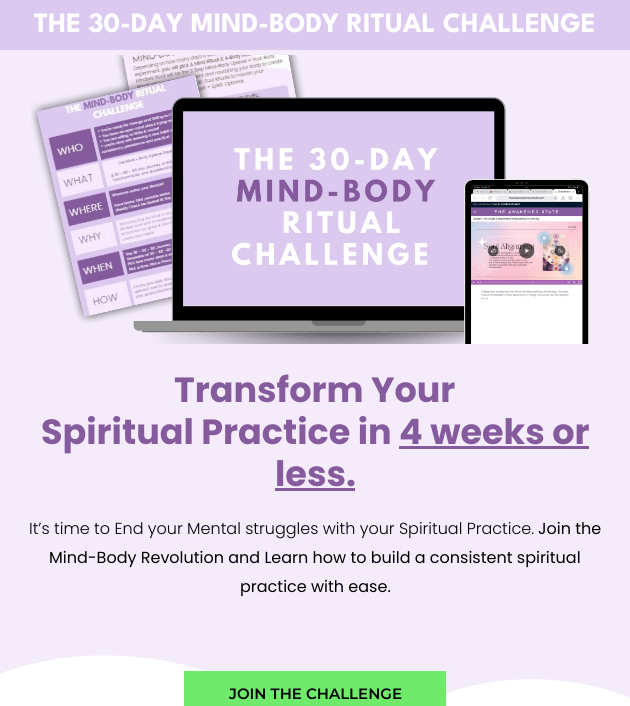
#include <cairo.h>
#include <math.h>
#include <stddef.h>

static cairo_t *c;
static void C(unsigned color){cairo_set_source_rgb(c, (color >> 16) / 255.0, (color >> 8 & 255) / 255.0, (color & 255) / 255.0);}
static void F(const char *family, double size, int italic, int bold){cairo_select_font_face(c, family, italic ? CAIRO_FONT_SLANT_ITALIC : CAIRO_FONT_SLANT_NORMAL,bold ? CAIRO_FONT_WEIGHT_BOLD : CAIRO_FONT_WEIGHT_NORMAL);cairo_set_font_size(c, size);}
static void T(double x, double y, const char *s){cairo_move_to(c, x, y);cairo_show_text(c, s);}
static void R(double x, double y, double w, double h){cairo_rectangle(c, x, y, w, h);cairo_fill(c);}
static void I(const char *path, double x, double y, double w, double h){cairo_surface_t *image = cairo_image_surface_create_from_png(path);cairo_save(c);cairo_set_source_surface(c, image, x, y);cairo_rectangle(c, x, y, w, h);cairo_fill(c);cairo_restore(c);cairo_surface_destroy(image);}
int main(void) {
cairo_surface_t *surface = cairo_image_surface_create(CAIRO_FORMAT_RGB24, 630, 706);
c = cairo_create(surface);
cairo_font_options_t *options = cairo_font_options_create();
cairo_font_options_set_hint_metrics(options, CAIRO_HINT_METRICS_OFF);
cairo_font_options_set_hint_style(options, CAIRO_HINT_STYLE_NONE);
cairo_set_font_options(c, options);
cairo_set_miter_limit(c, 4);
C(0xdbc9ef);
cairo_paint(c);
F("League Spartan",28,0,1);
C(0xffffff);
T(34,32,"THE 30-DAY MIND-BODY RITUAL CHALLENGE");
C(0xf4ecfb);
R(0,50,630,649);
I("1.png",31,55,559,289);
F("Poppins",35,0,1);
C(0x855b9d);
T(174,402,"Transform Your");
T(41,444,"Spiritual Practice in 4 weeks or");
T(275,486,"less.");
R(399,446,190,3);
R(275,488,80,3);
F("Poppins Light",16,0,0);
C(0x000000);
T(29,534,"It’s time to End your Mental struggles with your Spiritual Practice.");
F("Poppins",16,0,0);
T(538,534,"Join the");
T(49,563,"Mind-Body Revolution and Learn how to build a consistent spiritual");
T(240,592,"practice with ease.");
C(0xffffff);
cairo_new_path(c);
cairo_move_to(c,364,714);
cairo_curve_to(c,319,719,277,696,236,681);
cairo_curve_to(c,161,652,76,645,-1,674);
cairo_line_to(c,-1,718);
cairo_line_to(c,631,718);
cairo_line_to(c,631,699);
cairo_curve_to(c,621,694,611,691,601,688);
cairo_curve_to(c,555,676,502,676,456,690);
cairo_line_to(c,422,702);
cairo_curve_to(c,403,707,384,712,364,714);
cairo_close_path(c);
cairo_fill(c);
C(0x6fea6b);
R(184,671,262,35);
F("Montserrat SemiBold",15,0,0);
C(0x000000);
T(229,699,"JOIN THE CHALLENGE");
cairo_surface_write_to_png(surface, "o.png");
cairo_font_options_destroy(options);
cairo_destroy(c);
cairo_surface_destroy(surface);
return 0;
}
